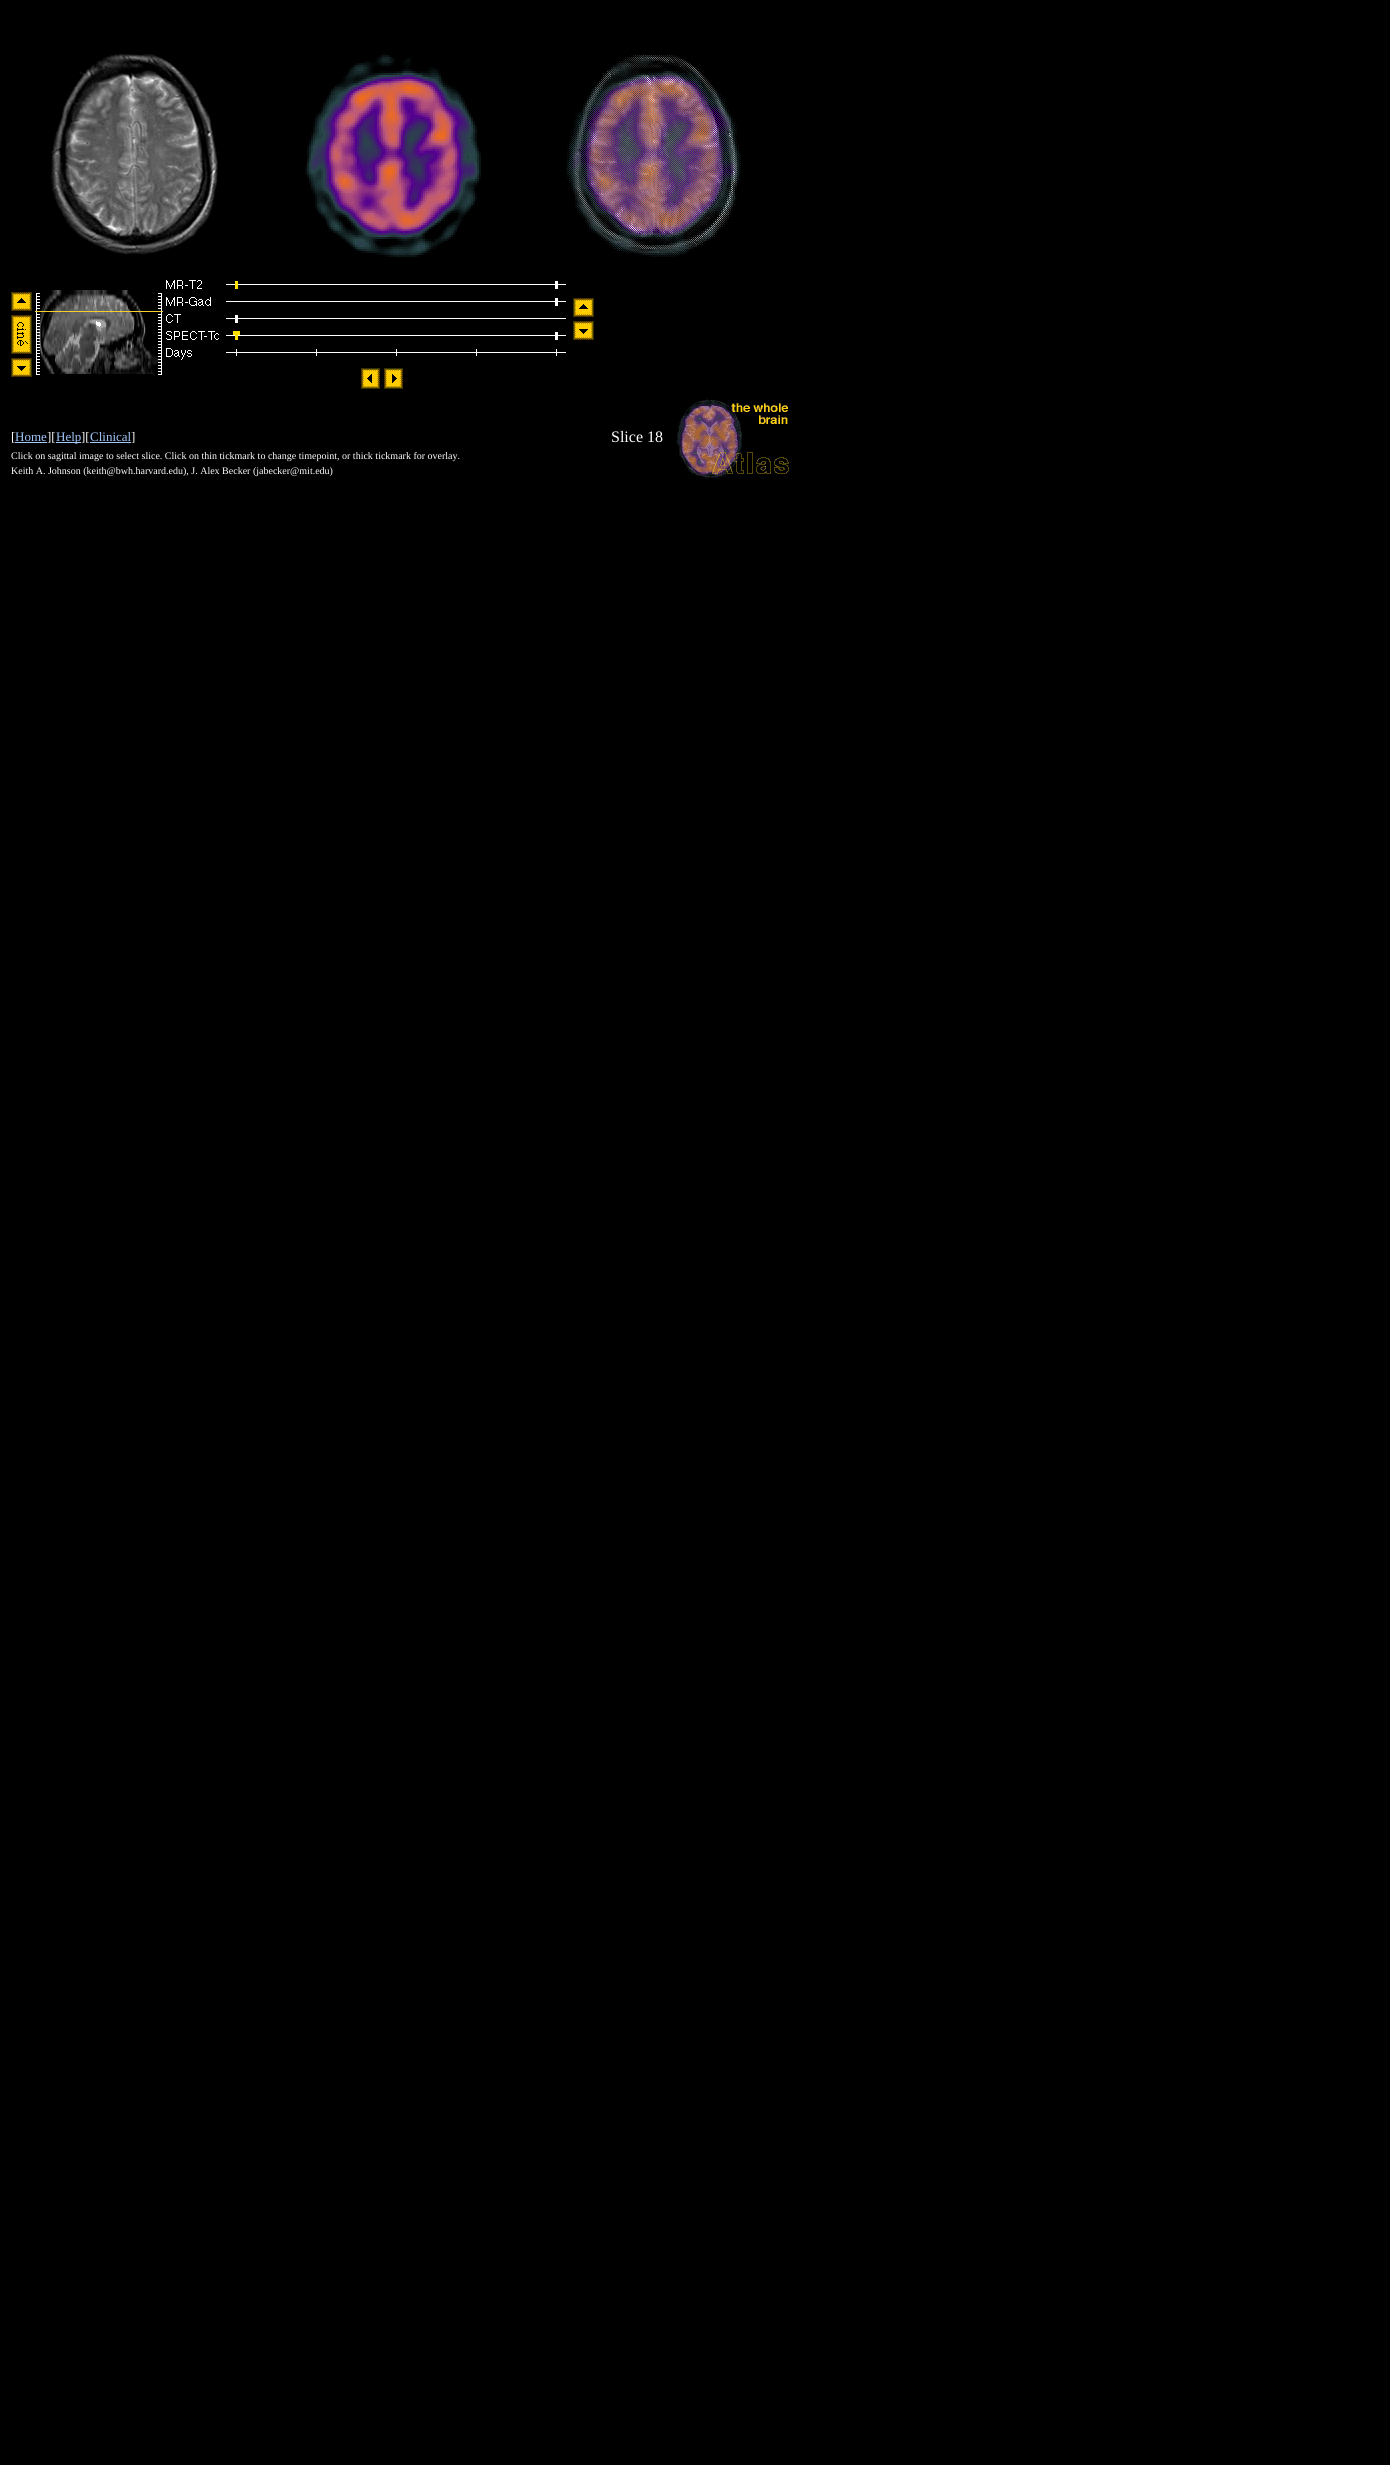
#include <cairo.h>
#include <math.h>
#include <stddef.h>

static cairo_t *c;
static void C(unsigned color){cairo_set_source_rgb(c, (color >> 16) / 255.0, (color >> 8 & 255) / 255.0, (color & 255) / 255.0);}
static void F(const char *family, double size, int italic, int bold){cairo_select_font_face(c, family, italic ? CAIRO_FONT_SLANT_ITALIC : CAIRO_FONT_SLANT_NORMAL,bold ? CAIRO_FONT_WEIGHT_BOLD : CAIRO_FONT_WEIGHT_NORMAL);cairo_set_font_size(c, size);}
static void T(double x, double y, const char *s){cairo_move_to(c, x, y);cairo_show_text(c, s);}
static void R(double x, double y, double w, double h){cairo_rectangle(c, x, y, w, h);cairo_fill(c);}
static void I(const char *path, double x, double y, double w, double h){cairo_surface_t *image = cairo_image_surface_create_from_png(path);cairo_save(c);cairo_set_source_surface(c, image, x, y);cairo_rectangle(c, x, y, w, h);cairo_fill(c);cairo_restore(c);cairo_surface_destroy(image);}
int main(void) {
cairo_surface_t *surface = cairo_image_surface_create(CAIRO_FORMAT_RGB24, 1390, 2465);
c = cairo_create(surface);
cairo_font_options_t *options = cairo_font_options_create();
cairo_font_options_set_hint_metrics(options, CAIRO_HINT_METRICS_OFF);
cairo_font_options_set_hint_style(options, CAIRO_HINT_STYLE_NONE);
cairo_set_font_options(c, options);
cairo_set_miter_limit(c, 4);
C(0x000000);
cairo_paint(c);
I("1.png",50,54,168,201);
I("2.png",305,53,176,204);
I("3.png",565,53,176,204);
I("4.png",11,292,21,19);
I("5.png",11,315,21,39);
I("6.png",11,358,21,19);
I("7.png",35,290,128,85);
I("8.png",166,280,400,80);
I("4.png",573,298,21,19);
I("6.png",573,321,21,19);
I("9.png",361,368,19,21);
I("10.png",384,368,19,21);
F("Liberation Serif",13,0,0);
C(0xffffff);
T(11,441,"[");
C(0xa4c7fc);
R(15,442,32,1);
T(15,441,"Home");
C(0xffffff);
T(47,441,"][");
C(0xa4c7fc);
R(56,442,25,1);
T(56,441,"Help");
C(0xffffff);
T(81,441,"][");
C(0xa4c7fc);
R(90,442,41,1);
T(90,441,"Clinical");
C(0xffffff);
T(131,441,"]");
F("Liberation Serif",16,0,0);
T(611,442,"Slice 18");
F("Liberation Serif",10,0,0);
T(11,459,"Click on sagittal image to select slice. Click on thin tickmark to change timepoint, or thick tickmark for overlay.");
T(11,474,"Keith A. Johnson (keith@bwh.harvard.edu), J. Alex Becker (jabecker@mit.edu)");
I("11.png",676,398,113,81);
cairo_surface_write_to_png(surface, "o.png");
cairo_font_options_destroy(options);
cairo_destroy(c);
cairo_surface_destroy(surface);
return 0;
}
